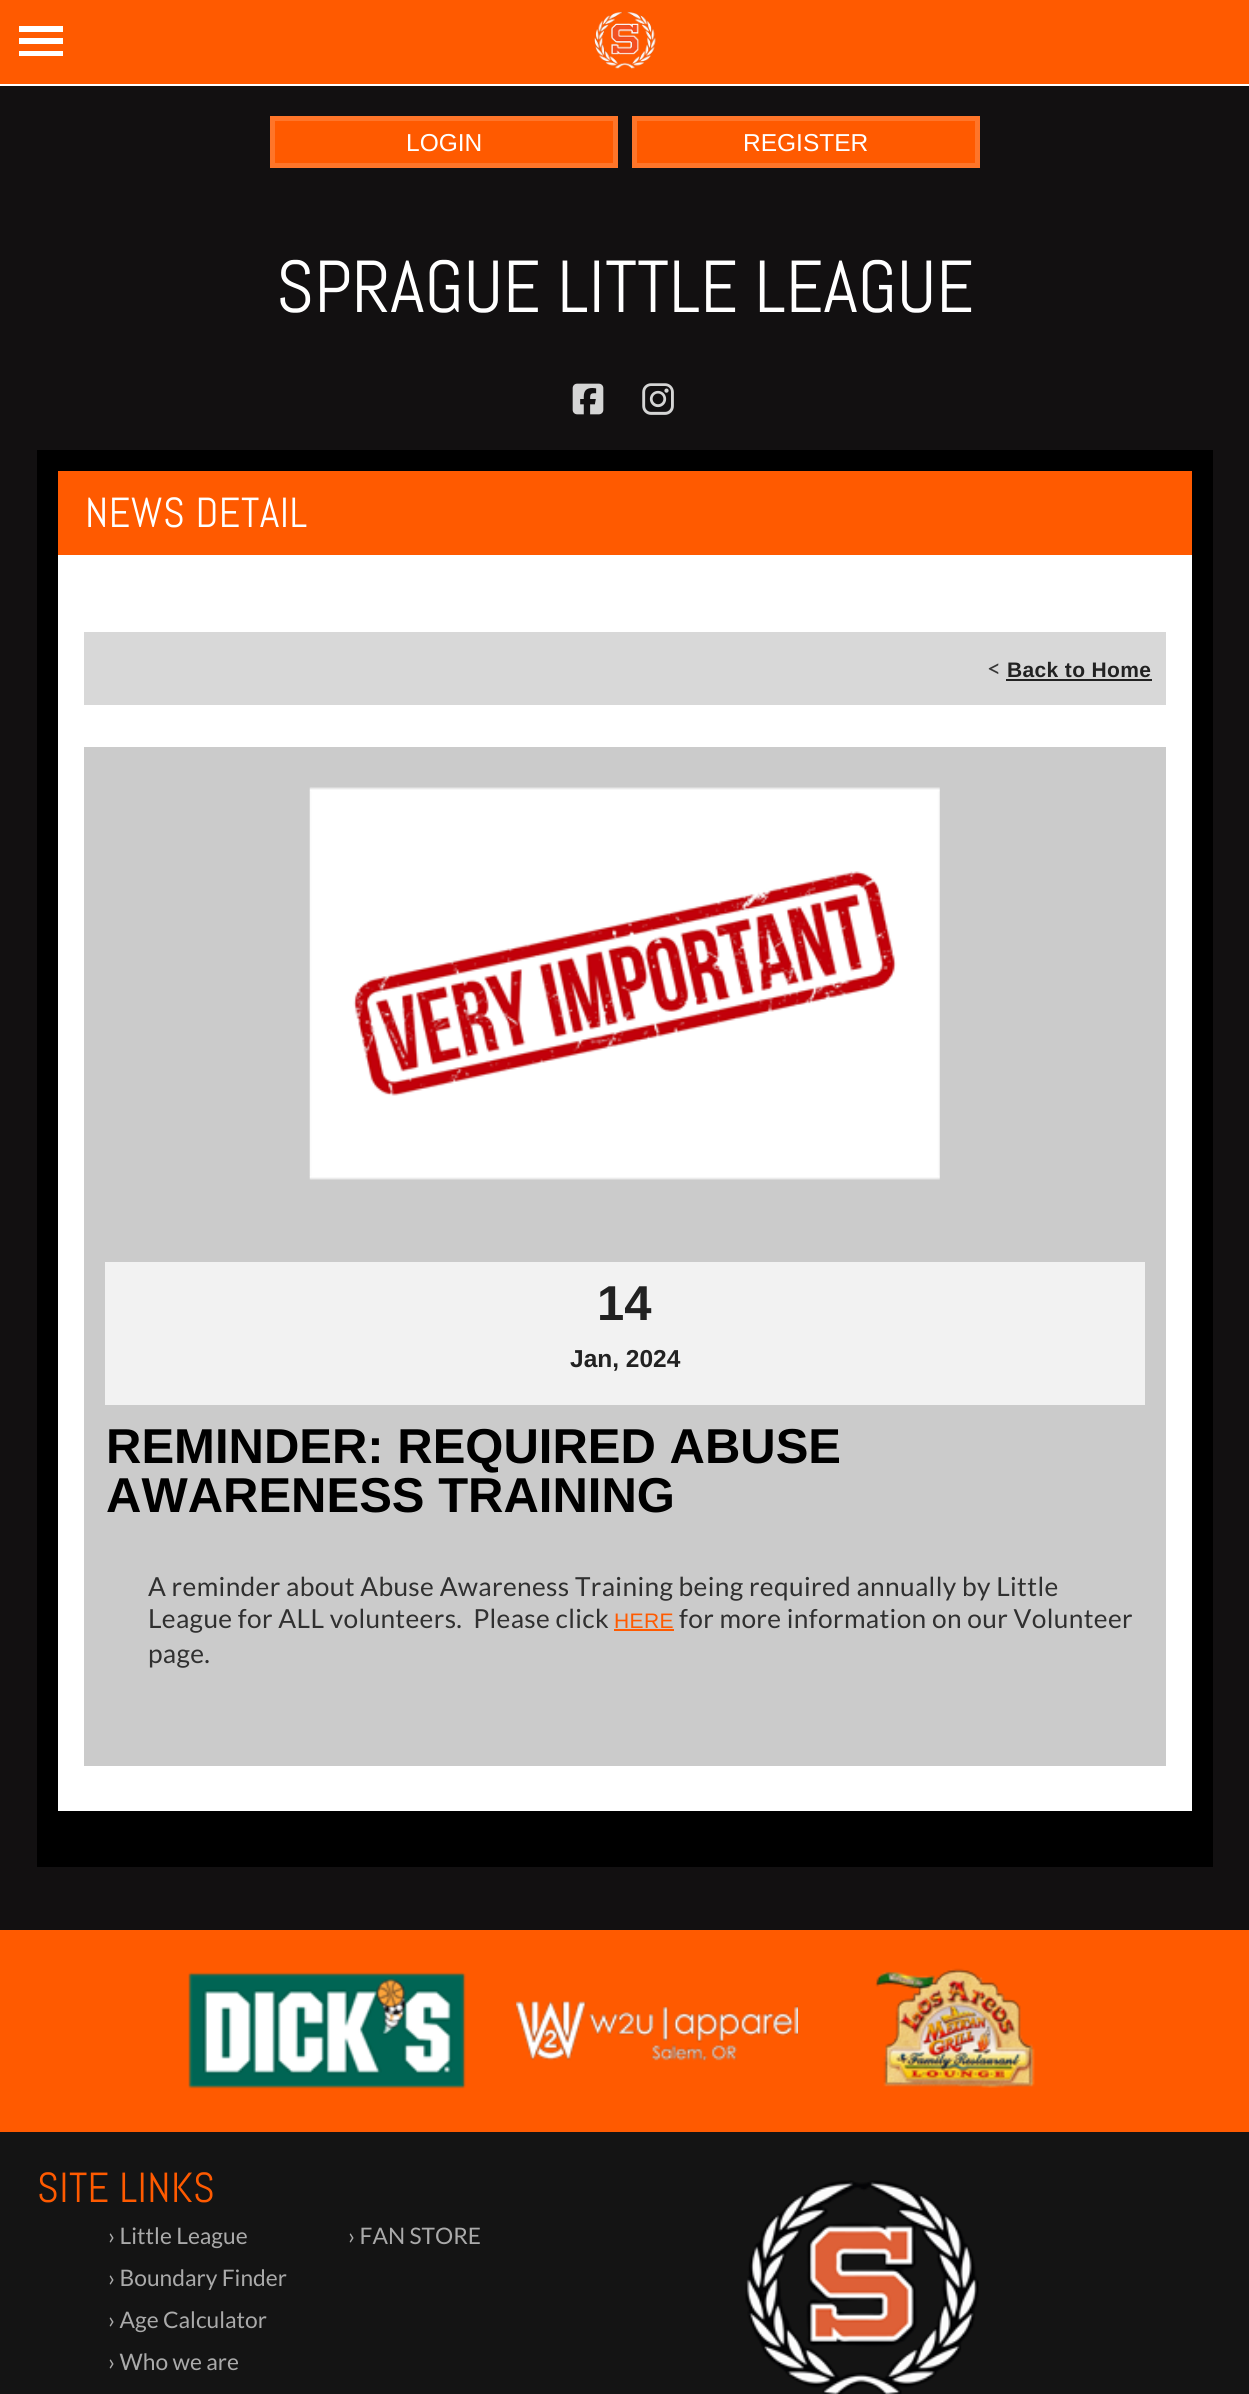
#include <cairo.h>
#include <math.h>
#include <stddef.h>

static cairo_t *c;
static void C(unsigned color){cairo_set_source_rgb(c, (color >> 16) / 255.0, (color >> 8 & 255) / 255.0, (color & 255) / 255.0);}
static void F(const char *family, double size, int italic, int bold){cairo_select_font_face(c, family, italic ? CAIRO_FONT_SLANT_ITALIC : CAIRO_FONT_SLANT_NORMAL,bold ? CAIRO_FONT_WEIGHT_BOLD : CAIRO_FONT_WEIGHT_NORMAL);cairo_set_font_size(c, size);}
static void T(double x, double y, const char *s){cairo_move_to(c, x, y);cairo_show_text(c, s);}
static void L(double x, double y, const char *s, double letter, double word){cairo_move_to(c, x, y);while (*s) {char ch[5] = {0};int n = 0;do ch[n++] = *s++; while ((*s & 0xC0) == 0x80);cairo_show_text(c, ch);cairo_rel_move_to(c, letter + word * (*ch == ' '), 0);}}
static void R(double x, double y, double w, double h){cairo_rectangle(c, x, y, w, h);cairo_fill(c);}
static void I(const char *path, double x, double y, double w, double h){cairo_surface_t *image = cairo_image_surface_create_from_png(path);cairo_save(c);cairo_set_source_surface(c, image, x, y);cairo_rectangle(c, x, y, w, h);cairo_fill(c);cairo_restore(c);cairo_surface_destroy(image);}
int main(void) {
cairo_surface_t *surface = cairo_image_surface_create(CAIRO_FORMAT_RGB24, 1249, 2394);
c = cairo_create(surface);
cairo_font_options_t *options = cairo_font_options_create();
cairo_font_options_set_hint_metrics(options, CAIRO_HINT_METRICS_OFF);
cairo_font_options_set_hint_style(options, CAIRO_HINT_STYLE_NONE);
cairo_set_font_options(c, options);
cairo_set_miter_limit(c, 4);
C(0x121011);
cairo_paint(c);
C(0xff5a00);
R(0,0,1249,84);
C(0xffffff);
R(0,84,1249,2);
cairo_new_path(c);
cairo_move_to(c,19,26);
cairo_line_to(c,63,26);
cairo_line_to(c,63,32);
cairo_line_to(c,19,32);
cairo_close_path(c);
cairo_move_to(c,19,38);
cairo_line_to(c,63,38);
cairo_line_to(c,63,44);
cairo_line_to(c,19,44);
cairo_close_path(c);
cairo_move_to(c,19,51);
cairo_line_to(c,63,51);
cairo_line_to(c,63,56);
cairo_line_to(c,19,56);
cairo_close_path(c);
cairo_fill(c);
I("1.png",594,11,62,58);
C(0xff5a00);
cairo_rectangle(c,272.5,118.5,343,47);
cairo_fill_preserve(c);
C(0xff7529);
cairo_set_line_width(c,5);
cairo_stroke(c);
F("Liberation Sans",24.5,0,0);
C(0xffffff);
T(406,151,"LOGIN");
C(0xff5a00);
cairo_rectangle(c,634.5,118.5,343,47);
cairo_fill_preserve(c);
C(0xff7529);
cairo_stroke(c);
C(0xffffff);
T(743,151,"REGISTER");
F("Abel",73.5,0,0);
T(276,312,"SPRAGUE LITTLE LEAGUE");
I("2.png",572,383,32,32);
I("3.png",642,383,32,32);
C(0x000000);
R(37,450,1176,1417);
C(0xff5a00);
R(58,471,1134,84);
F("Abel",42,0,0);
C(0xffffff);
L(85,527,"NEWS DETAIL",.5,0);
R(58,555,1134,1256);
C(0xd8d8d8);
R(84,632,1082,73);
F("Lato",24.5,0,0);
C(0x363636);
L(987,677,"<",.35,0);
F("Liberation Sans",21,0,1);
C(0x222222);
L(1007,677,"Back to Home",.35,0);
R(1006,679,146,2);
C(0xcbcbcb);
R(84,747,1082,1019);
I("4.png",309,787,631,393);
C(0xf2f2f2);
R(105,1262,1040,143);
F("Liberation Sans",49,0,1);
C(0x222222);
T(597,1320,"14");
F("Liberation Sans",24.5,0,1);
T(570,1367,"Jan, 2024");
F("Liberation Sans",49,0,1);
C(0x000000);
T(106,1463,"REMINDER: REQUIRED ABUSE");
T(106,1512,"AWARENESS TRAINING");
F("Lato",26.25,0,0);
C(0x303030);
L(148,1596,"A reminder about Abuse Awareness Training being required annually by Little",.35,0);
L(148,1628,"League for ALL volunteers.  Please click",.35,0);
F("Liberation Sans",21,0,0);
C(0xff5a00);
L(614,1628,"HERE",.35,0);
R(614,1629,60,2);
F("Lato",26.25,0,0);
C(0x303030);
L(679,1628,"for more information on our Volunteer",.35,0);
L(148,1663,"page.",.35,0);
C(0xff5a00);
R(0,1930,1249,202);
I("5.png",188,1972,278,117);
I("6.png",516,2000,282,62);
I("7.png",875,1968,160,120);
C(0x141414);
R(0,2132,1249,262);
F("Abel",42,0,0);
C(0xff5a00);
L(37,2202,"SITE LINKS",.35,0);
F("Lato",22.75,0,0);
C(0xaaaaaa);
T(108,2244,"› Little League");
T(108,2286,"› Boundary Finder");
T(108,2328,"› Age Calculator");
T(108,2370,"› Who we are");
T(348,2244,"› FAN STORE");
I("8.png",745,2180,234,214);
cairo_surface_write_to_png(surface, "o.png");
cairo_font_options_destroy(options);
cairo_destroy(c);
cairo_surface_destroy(surface);
return 0;
}
